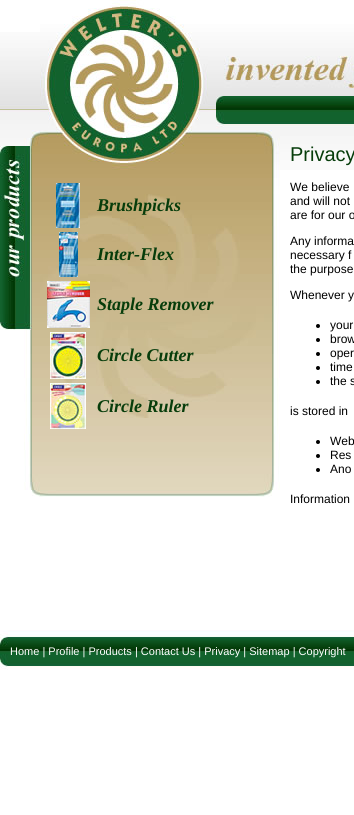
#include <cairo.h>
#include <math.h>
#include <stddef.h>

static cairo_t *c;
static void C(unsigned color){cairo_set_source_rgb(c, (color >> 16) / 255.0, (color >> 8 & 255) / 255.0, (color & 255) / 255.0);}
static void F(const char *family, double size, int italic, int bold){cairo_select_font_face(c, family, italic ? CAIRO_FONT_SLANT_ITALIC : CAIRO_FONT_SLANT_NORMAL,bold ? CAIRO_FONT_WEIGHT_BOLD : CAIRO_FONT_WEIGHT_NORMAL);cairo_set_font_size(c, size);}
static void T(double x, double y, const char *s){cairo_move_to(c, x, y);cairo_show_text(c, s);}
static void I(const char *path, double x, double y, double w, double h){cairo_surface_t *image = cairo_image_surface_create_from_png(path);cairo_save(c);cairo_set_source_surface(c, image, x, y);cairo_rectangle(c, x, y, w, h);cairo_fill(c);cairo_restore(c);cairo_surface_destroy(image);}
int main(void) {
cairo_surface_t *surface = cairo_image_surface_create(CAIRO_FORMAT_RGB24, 354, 815);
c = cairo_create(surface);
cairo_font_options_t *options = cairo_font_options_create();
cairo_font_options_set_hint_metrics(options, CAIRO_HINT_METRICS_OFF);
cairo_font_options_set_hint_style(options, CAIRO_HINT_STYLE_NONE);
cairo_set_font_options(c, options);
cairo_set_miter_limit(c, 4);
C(0xffffff);
cairo_paint(c);
I("1.png",0,32,354,138);
I("2.png",0,96,40,24);
I("3.png",40,0,314,130);
I("4.png",0,130,280,367);
I("5.png",56,183,24,45);
F("Liberation Serif",18,1,1);
C(0x073d0b);
T(97,211,"Brushpicks");
I("6.png",59,232,19,45);
T(97,260,"Inter-Flex");
I("7.png",47,281,43,47);
T(97,310,"Staple Remover");
I("8.png",50,332,36,47);
T(97,361,"Circle Cutter");
I("9.png",50,383,36,46);
T(97,412,"Circle Ruler");
F("Liberation Sans",20,0,0);
T(290,161,"Privacy");
F("Liberation Sans",12,0,0);
C(0x000000);
T(290,191,"We believe");
T(290,205,"and will not");
T(290,219,"are for our o");
T(290,245,"Any informa");
T(290,259,"necessary f");
T(290,273,"the purpose");
T(290,299,"Whenever y");
cairo_new_path(c);
cairo_arc(c,318,326,2,0,2 * M_PI);
cairo_fill(c);
T(330,329,"your");
cairo_new_path(c);
cairo_arc(c,318,340,2,0,2 * M_PI);
cairo_fill(c);
T(330,343,"brow");
cairo_new_path(c);
cairo_arc(c,318,354,2,0,2 * M_PI);
cairo_fill(c);
T(330,357,"oper");
cairo_new_path(c);
cairo_arc(c,318,368,2,0,2 * M_PI);
cairo_fill(c);
T(330,371,"time");
cairo_new_path(c);
cairo_arc(c,318,382,2,0,2 * M_PI);
cairo_fill(c);
T(330,385,"the s");
T(290,415,"is stored in");
cairo_new_path(c);
cairo_arc(c,318,442,2,0,2 * M_PI);
cairo_fill(c);
T(330,445,"Web");
cairo_new_path(c);
cairo_arc(c,318,456,2,0,2 * M_PI);
cairo_fill(c);
T(330,459,"Res");
cairo_new_path(c);
cairo_arc(c,318,470,2,0,2 * M_PI);
cairo_fill(c);
T(330,473,"Ano");
T(290,503,"Information");
I("10.png",0,630,354,40);
F("Liberation Sans",11,0,0);
C(0xffffff);
T(10,655,"Home | Profile | Products | Contact Us | Privacy | Sitemap | Copyright");
cairo_surface_write_to_png(surface, "o.png");
cairo_font_options_destroy(options);
cairo_destroy(c);
cairo_surface_destroy(surface);
return 0;
}
